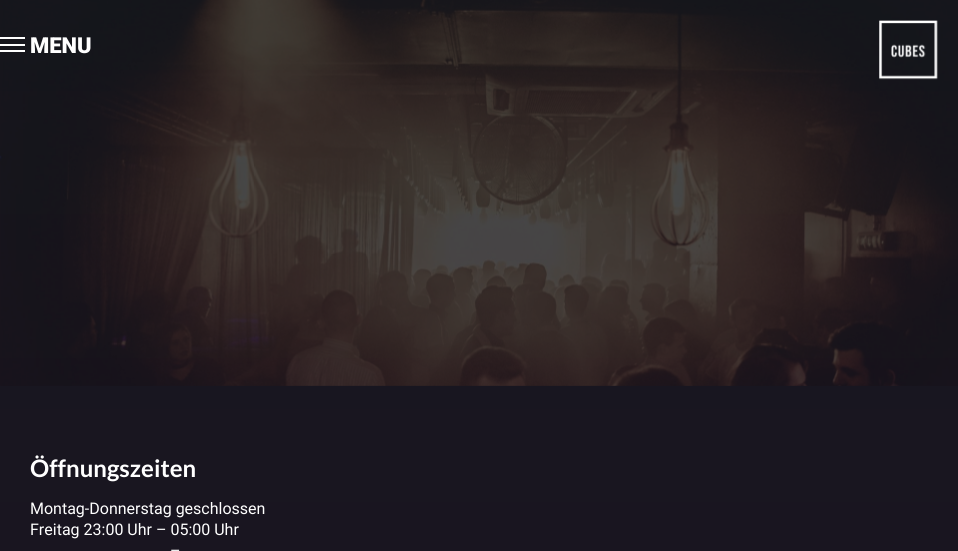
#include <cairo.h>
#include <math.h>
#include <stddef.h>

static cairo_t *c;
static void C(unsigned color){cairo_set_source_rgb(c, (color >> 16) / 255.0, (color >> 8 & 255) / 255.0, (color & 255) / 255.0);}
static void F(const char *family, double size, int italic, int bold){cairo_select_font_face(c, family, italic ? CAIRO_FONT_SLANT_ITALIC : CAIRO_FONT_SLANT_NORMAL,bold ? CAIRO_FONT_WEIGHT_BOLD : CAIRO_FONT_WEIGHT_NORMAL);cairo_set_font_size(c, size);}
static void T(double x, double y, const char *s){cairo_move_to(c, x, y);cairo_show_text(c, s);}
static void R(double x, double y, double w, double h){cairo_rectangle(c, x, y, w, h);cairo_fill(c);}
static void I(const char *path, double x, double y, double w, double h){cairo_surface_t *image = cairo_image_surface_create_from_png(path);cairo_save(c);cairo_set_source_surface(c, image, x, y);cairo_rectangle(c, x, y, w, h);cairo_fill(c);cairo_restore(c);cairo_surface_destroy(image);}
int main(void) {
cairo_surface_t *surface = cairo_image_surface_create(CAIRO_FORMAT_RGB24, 958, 551);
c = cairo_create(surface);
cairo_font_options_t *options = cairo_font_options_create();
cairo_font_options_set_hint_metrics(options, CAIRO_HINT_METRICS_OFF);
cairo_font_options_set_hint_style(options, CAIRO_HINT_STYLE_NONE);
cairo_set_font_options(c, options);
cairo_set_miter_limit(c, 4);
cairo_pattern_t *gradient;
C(0xffffff);
cairo_paint(c);
gradient = cairo_pattern_create_linear(479,0,479,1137);
cairo_pattern_add_color_stop_rgba(gradient,0,0.086,0.098,0.125,1);
cairo_pattern_add_color_stop_rgba(gradient,1,0.114,0.067,0.129,1);
cairo_set_source(c,gradient);
cairo_pattern_destroy(gradient);
R(0,0,958,551);
I("2.png",0,0,958,386);
C(0xffffff);
R(0,37,25,2);
F("Roboto Black",22,0,0);
T(30,53,"MENU");
R(0,44,25,2);
R(0,50,25,2);
I("1.png",879,20,59,60);
F("Lato",24,0,1);
T(30,477,"Öffnungszeiten");
F("Roboto",16,0,0);
T(30,514,"Montag-Donnerstag geschlossen");
T(30,535,"Freitag 23:00 Uhr – 05:00 Uhr");
T(170,556,"–");
cairo_surface_write_to_png(surface, "o.png");
cairo_font_options_destroy(options);
cairo_destroy(c);
cairo_surface_destroy(surface);
return 0;
}
